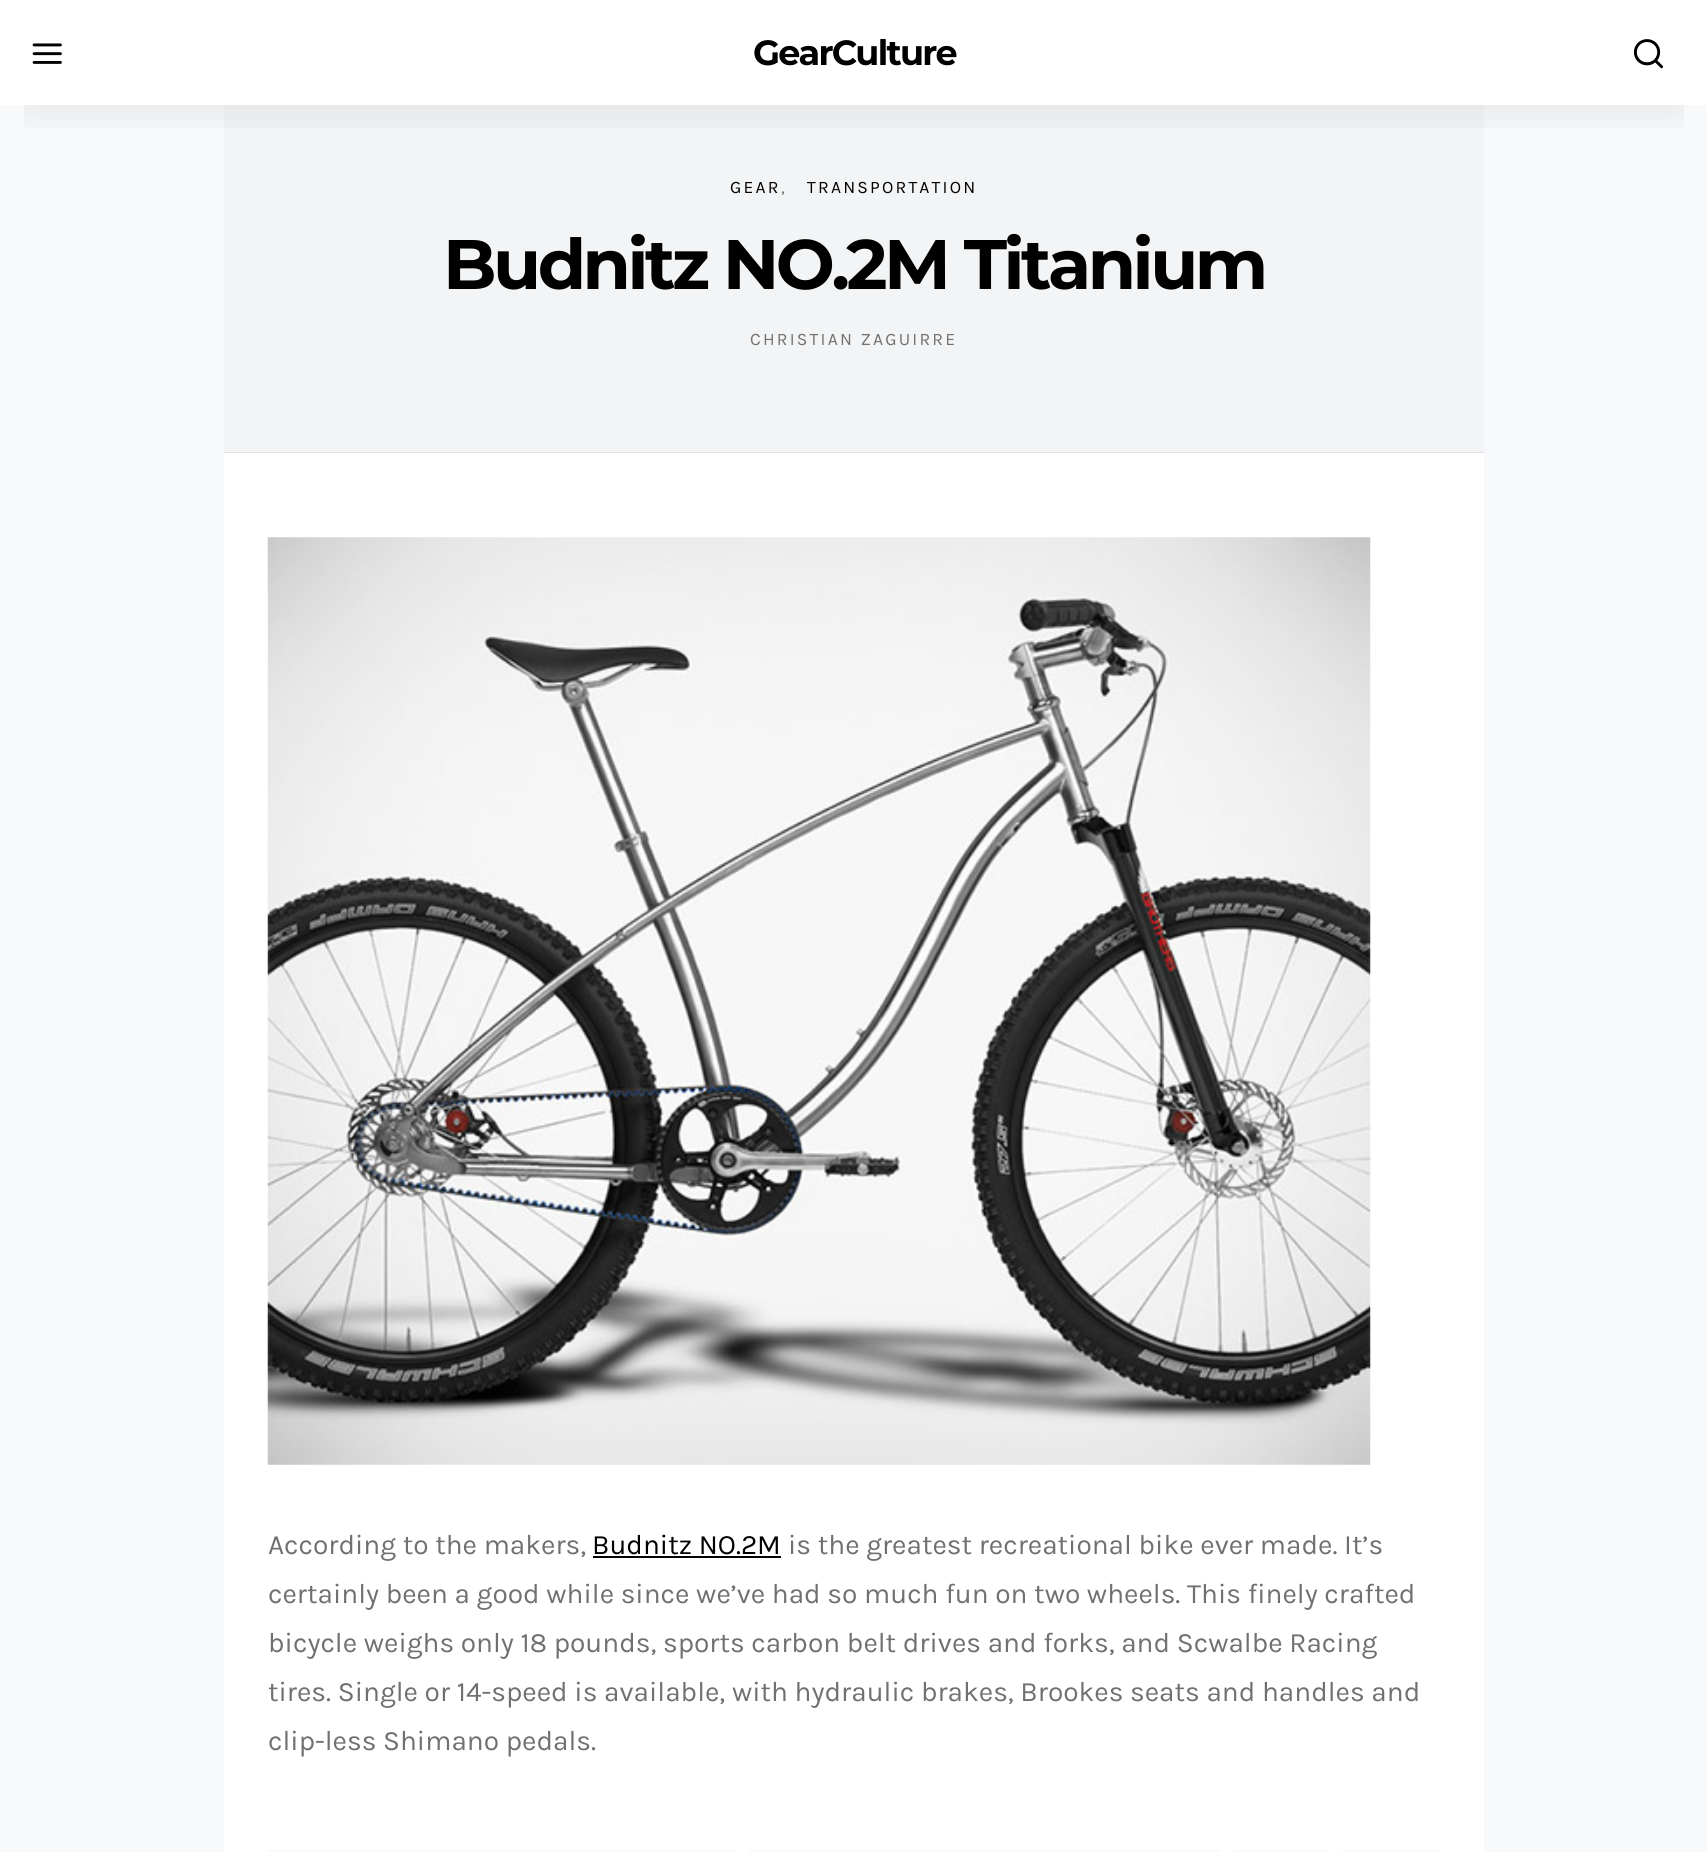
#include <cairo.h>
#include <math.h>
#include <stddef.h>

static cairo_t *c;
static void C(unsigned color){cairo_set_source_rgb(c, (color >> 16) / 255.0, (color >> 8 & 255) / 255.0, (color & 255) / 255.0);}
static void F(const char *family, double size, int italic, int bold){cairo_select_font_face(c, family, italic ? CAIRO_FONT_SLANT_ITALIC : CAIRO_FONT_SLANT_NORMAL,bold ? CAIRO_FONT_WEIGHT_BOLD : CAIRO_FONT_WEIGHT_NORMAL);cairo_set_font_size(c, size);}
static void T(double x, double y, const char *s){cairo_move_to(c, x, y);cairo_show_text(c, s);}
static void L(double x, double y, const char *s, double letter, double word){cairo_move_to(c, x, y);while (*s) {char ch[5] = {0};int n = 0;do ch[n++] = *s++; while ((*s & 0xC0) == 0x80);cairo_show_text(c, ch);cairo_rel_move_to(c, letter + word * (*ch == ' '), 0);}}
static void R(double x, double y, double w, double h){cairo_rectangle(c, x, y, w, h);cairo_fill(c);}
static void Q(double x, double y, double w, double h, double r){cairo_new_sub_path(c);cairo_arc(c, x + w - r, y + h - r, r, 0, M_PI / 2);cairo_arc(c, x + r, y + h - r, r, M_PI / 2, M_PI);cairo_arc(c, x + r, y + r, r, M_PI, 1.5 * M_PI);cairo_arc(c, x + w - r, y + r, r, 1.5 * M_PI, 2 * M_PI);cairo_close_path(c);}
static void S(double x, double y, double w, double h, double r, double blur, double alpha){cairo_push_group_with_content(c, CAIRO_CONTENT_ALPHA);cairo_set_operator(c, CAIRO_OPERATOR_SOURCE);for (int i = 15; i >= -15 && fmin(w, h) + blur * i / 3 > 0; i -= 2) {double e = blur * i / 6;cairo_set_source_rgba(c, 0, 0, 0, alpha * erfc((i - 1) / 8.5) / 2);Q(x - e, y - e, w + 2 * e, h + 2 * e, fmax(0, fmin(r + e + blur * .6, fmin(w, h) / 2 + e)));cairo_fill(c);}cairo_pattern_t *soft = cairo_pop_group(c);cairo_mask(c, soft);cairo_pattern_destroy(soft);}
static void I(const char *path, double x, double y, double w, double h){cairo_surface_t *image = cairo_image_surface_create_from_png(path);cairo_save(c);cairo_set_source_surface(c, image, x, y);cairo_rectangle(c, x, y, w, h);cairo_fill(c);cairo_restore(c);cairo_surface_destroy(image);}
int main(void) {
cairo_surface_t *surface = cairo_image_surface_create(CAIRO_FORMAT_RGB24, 1707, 1852);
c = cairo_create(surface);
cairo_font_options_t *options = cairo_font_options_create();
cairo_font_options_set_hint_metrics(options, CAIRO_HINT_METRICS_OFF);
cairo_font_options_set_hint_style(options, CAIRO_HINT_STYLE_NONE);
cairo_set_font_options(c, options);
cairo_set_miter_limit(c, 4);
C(0xf8f9fa);
cairo_paint(c);
C(0xffffff);
R(0,0,1707,105);
C(0xf2f4f5);
R(224,105,1260,347);
cairo_save(c);
cairo_rectangle(c,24,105,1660,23);
cairo_clip(c);
C(0x000000);
S(28,56,1652,49,0,28,.1);
cairo_restore(c);
I("1.png",32,43,30,21);
F("Montserrat Thin",35,0,0);
C(0x000000);
L(753,65,"GearCulture",-1.75,0);
I("2.png",1633,39,31,30);
C(0xffffff);
R(224,453,1260,1399);
C(0xdee2e6);
R(224,452,1260,1);
F("Karla",17.5,0,0);
C(0x000000);
L(730,193,"GEAR",2.2,0);
C(0x707070);
L(781,193,",",2.2,0);
C(0x000000);
L(807,193,"TRANSPORTATION",2.2,0);
F("Montserrat Thin",70,0,0);
L(443,289,"Budnitz NO.2M Titanium",-3.5,0);
F("Karla",17.5,0,0);
C(0x707070);
L(750,345,"CHRISTIAN ZAGUIRRE",2.2,0);
I("3.png",267,537,1104,928);
F("Karla",28,0,0);
T(268,1554,"According to the makers,");
C(0x000000);
T(592,1554,"Budnitz NO.2M");
R(593,1556,188,2);
C(0x707070);
T(788,1554,"is the greatest recreational bike ever made. It’s");
T(268,1603,"certainly been a good while since we’ve had so much fun on two wheels. This finely crafted");
T(268,1652,"bicycle weighs only 18 pounds, sports carbon belt drives and forks, and Scwalbe Racing");
T(268,1701,"tires. Single or 14-speed is available, with hydraulic brakes, Brookes seats and handles and");
T(268,1750,"clip-less Shimano pedals.");
C(0xf8f9fa);
R(268,1850,467,2);
R(749,1850,471,2);
R(1234,1850,94,2);
R(1342,1850,98,2);
cairo_surface_write_to_png(surface, "o.png");
cairo_font_options_destroy(options);
cairo_destroy(c);
cairo_surface_destroy(surface);
return 0;
}
